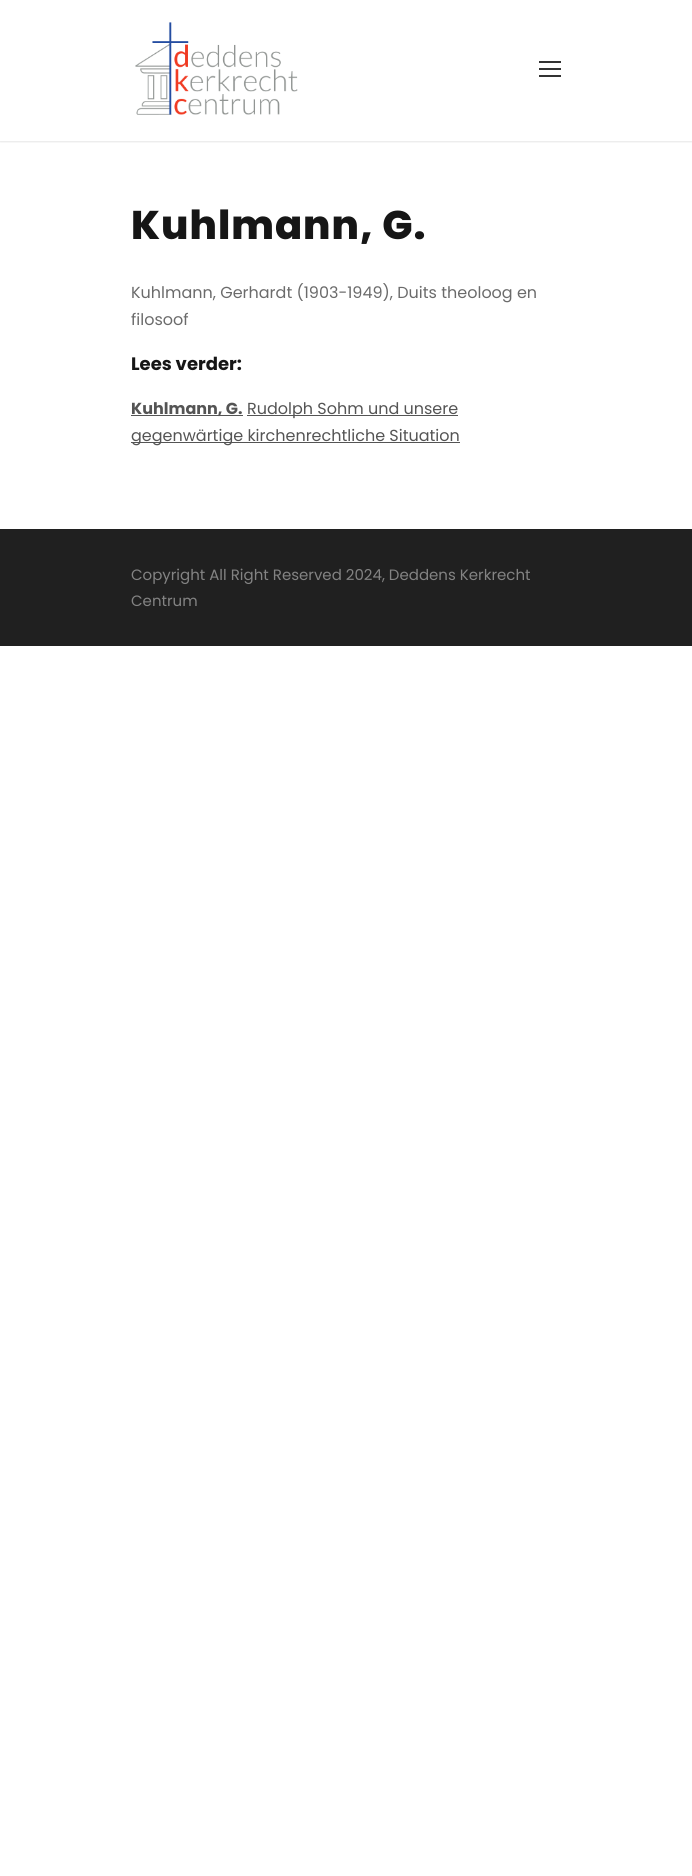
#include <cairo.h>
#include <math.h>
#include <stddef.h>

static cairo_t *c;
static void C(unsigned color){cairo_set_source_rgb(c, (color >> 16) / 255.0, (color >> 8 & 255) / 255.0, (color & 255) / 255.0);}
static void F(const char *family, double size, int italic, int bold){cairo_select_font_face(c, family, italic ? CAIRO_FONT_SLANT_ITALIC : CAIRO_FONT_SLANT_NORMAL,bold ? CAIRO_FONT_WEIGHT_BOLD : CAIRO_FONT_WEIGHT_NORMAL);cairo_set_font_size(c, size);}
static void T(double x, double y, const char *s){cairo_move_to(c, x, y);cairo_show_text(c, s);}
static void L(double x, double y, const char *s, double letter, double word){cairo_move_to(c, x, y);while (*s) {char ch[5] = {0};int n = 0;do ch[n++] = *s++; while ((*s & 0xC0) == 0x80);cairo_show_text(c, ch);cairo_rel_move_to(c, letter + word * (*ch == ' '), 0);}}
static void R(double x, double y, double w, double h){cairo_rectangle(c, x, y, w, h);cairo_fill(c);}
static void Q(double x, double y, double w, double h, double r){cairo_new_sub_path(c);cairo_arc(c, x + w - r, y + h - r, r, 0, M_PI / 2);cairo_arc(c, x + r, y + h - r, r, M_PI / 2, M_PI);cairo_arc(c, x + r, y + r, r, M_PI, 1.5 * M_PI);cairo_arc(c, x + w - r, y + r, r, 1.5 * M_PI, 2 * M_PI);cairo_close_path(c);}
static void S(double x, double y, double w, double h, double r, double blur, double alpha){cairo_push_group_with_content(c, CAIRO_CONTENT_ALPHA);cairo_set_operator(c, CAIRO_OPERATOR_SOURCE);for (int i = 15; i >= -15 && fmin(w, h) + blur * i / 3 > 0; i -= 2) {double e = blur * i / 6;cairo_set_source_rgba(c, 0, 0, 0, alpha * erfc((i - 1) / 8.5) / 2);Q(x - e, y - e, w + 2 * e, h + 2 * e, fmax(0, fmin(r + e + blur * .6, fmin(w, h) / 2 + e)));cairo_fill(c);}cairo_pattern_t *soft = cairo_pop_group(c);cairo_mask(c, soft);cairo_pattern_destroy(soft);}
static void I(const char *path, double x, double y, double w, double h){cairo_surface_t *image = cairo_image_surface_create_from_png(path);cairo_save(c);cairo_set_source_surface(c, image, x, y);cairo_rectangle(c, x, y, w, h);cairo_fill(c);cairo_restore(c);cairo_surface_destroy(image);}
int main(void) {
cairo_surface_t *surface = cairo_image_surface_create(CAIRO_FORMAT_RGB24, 692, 1876);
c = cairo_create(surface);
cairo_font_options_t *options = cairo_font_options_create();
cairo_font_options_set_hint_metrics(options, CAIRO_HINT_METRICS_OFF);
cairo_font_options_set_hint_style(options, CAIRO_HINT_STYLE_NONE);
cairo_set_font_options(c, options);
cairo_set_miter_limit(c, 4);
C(0xffffff);
cairo_paint(c);
cairo_save(c);
cairo_rectangle(c,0,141,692,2);
cairo_clip(c);
C(0x000000);
S(0,1,692,141,0,1,.1);
cairo_restore(c);
I("1.png",135,22,163,93);
C(0x333333);
R(539,61,22,2);
R(539,68,22,2);
R(539,75,22,2);
F("Poppins ExtraBold",40,0,0);
C(0x161616);
L(131,239,"Kuhlmann, G.",1,0);
F("Poppins",16,0,0);
C(0x6b6b6b);
T(131,298,"Kuhlmann, Gerhardt (1903-1949), Duits theoloog en");
T(131,325,"filosoof");
F("Poppins",18,0,1);
C(0x161616);
T(131,370,"Lees verder:");
C(0x545454);
R(131,415,112,1);
F("Poppins",16,0,1);
T(131,414,"Kuhlmann, G.");
R(247,415,211,1);
F("Poppins",16,0,0);
T(247,414,"Rudolph Sohm und unsere");
R(131,442,329,1);
T(131,441,"gegenwärtige kirchenrechtliche Situation");
C(0x202020);
R(0,529,692,117);
F("Poppins",15,0,0);
C(0x838383);
T(131,580,"Copyright All Right Reserved 2024, Deddens Kerkrecht");
T(131,606,"Centrum");
cairo_surface_write_to_png(surface, "o.png");
cairo_font_options_destroy(options);
cairo_destroy(c);
cairo_surface_destroy(surface);
return 0;
}
